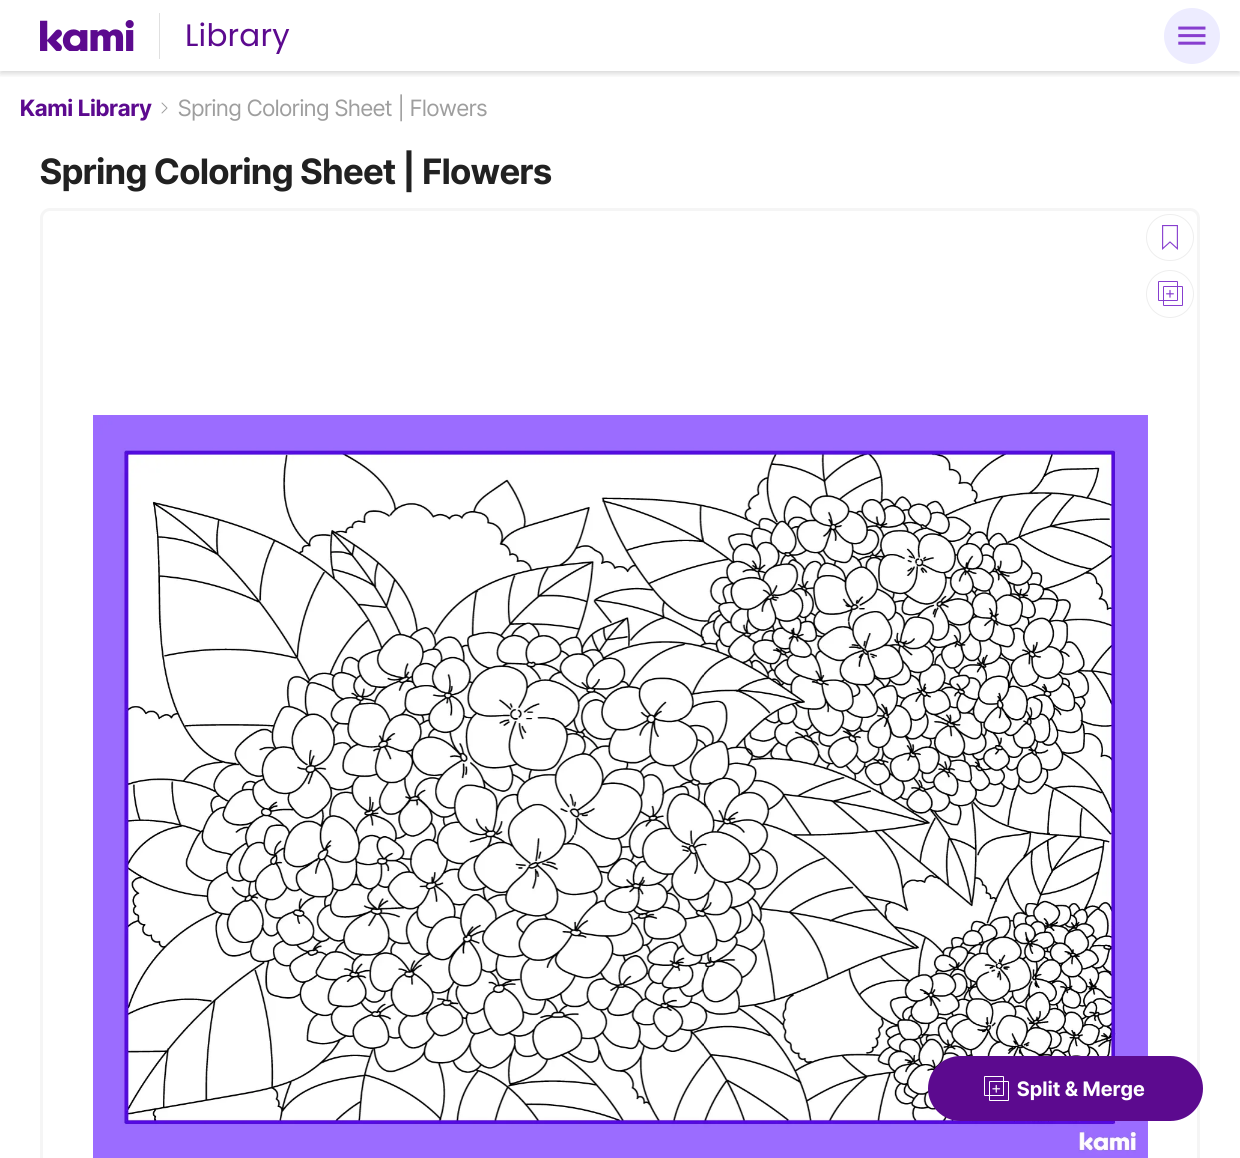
#include <cairo.h>
#include <math.h>
#include <stddef.h>

static cairo_t *c;
static void C(unsigned color){cairo_set_source_rgb(c, (color >> 16) / 255.0, (color >> 8 & 255) / 255.0, (color & 255) / 255.0);}
static void F(const char *family, double size, int italic, int bold){cairo_select_font_face(c, family, italic ? CAIRO_FONT_SLANT_ITALIC : CAIRO_FONT_SLANT_NORMAL,bold ? CAIRO_FONT_WEIGHT_BOLD : CAIRO_FONT_WEIGHT_NORMAL);cairo_set_font_size(c, size);}
static void L(double x, double y, const char *s, double letter, double word){cairo_move_to(c, x, y);while (*s) {char ch[5] = {0};int n = 0;do ch[n++] = *s++; while ((*s & 0xC0) == 0x80);cairo_show_text(c, ch);cairo_rel_move_to(c, letter + word * (*ch == ' '), 0);}}
static void R(double x, double y, double w, double h){cairo_rectangle(c, x, y, w, h);cairo_fill(c);}
static void Q(double x, double y, double w, double h, double r){cairo_new_sub_path(c);cairo_arc(c, x + w - r, y + h - r, r, 0, M_PI / 2);cairo_arc(c, x + r, y + h - r, r, M_PI / 2, M_PI);cairo_arc(c, x + r, y + r, r, M_PI, 1.5 * M_PI);cairo_arc(c, x + w - r, y + r, r, 1.5 * M_PI, 2 * M_PI);cairo_close_path(c);}
static void S(double x, double y, double w, double h, double r, double blur, double alpha){cairo_push_group_with_content(c, CAIRO_CONTENT_ALPHA);cairo_set_operator(c, CAIRO_OPERATOR_SOURCE);for (int i = 15; i >= -15 && fmin(w, h) + blur * i / 3 > 0; i -= 2) {double e = blur * i / 6;cairo_set_source_rgba(c, 0, 0, 0, alpha * erfc((i - 1) / 8.5) / 2);Q(x - e, y - e, w + 2 * e, h + 2 * e, fmax(0, fmin(r + e + blur * .6, fmin(w, h) / 2 + e)));cairo_fill(c);}cairo_pattern_t *soft = cairo_pop_group(c);cairo_mask(c, soft);cairo_pattern_destroy(soft);}
static void I(const char *path, double x, double y, double w, double h){cairo_surface_t *image = cairo_image_surface_create_from_png(path);cairo_save(c);cairo_set_source_surface(c, image, x, y);cairo_rectangle(c, x, y, w, h);cairo_fill(c);cairo_restore(c);cairo_surface_destroy(image);}
int main(void) {
cairo_surface_t *surface = cairo_image_surface_create(CAIRO_FORMAT_RGB24, 1240, 1158);
c = cairo_create(surface);
cairo_font_options_t *options = cairo_font_options_create();
cairo_font_options_set_hint_metrics(options, CAIRO_HINT_METRICS_OFF);
cairo_font_options_set_hint_style(options, CAIRO_HINT_STYLE_NONE);
cairo_set_font_options(c, options);
cairo_set_miter_limit(c, 4);
C(0xffffff);
cairo_paint(c);
cairo_save(c);
cairo_rectangle(c,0,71,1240,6);
cairo_clip(c);
C(0x000000);
S(0,3,1240,71,0,2.5,.14);
cairo_restore(c);
I("1.png",40,20,94,31);
C(0xe0e0e0);
R(159,13,1,46);
F("Poppins",31,0,0);
C(0x5c0a8f);
L(185,46,"Library",.2,0);
C(0xedecff);
cairo_new_path(c);
cairo_arc(c,1192,36,28,0,2 * M_PI);
cairo_fill(c);
I("2.png",1178,26,28,19);
F("Inter Tight",22.5,0,1);
C(0x5c0a8f);
L(20,116,"Kami Library",.2,0);
cairo_new_path(c);
cairo_move_to(c,162,103);
cairo_line_to(c,167,108);
cairo_line_to(c,162,113);
C(0x9e9e9e);
cairo_set_line_width(c,1);
cairo_set_line_cap(c,CAIRO_LINE_CAP_ROUND);
cairo_set_line_join(c,CAIRO_LINE_JOIN_ROUND);
cairo_stroke(c);
F("Inter Tight",22.5,0,0);
L(178,116,"Spring Coloring Sheet | Flowers",.2,0);
F("Inter Tight",35,0,1);
C(0x212121);
L(40,184,"Spring Coloring Sheet | Flowers",.2,0);
Q(41.5,209.5,1157,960,8.5);
C(0xf5f5f5);
cairo_set_line_width(c,3);
cairo_set_line_cap(c,CAIRO_LINE_CAP_BUTT);
cairo_set_line_join(c,CAIRO_LINE_JOIN_MITER);
cairo_stroke(c);
I("3.png",93,415,1055,743);
Q(1146.5,214.5,47,46,23);
C(0xeeeeee);
cairo_set_line_width(c,1);
cairo_stroke(c);
I("4.png",1162,225,16,25);
cairo_arc(c,1170,294,23.5,0,2 * M_PI);
cairo_stroke(c);
I("5.png",1158,281,25,25);
C(0x5c0a8f);
Q(928,1056,275,65,32.5);
cairo_fill(c);
I("6.png",984,1076,25,25);
F("Inter Tight",20,0,1);
C(0xffffff);
L(1017,1096,"Split & Merge",.5,0);
cairo_surface_write_to_png(surface, "o.png");
cairo_font_options_destroy(options);
cairo_destroy(c);
cairo_surface_destroy(surface);
return 0;
}
